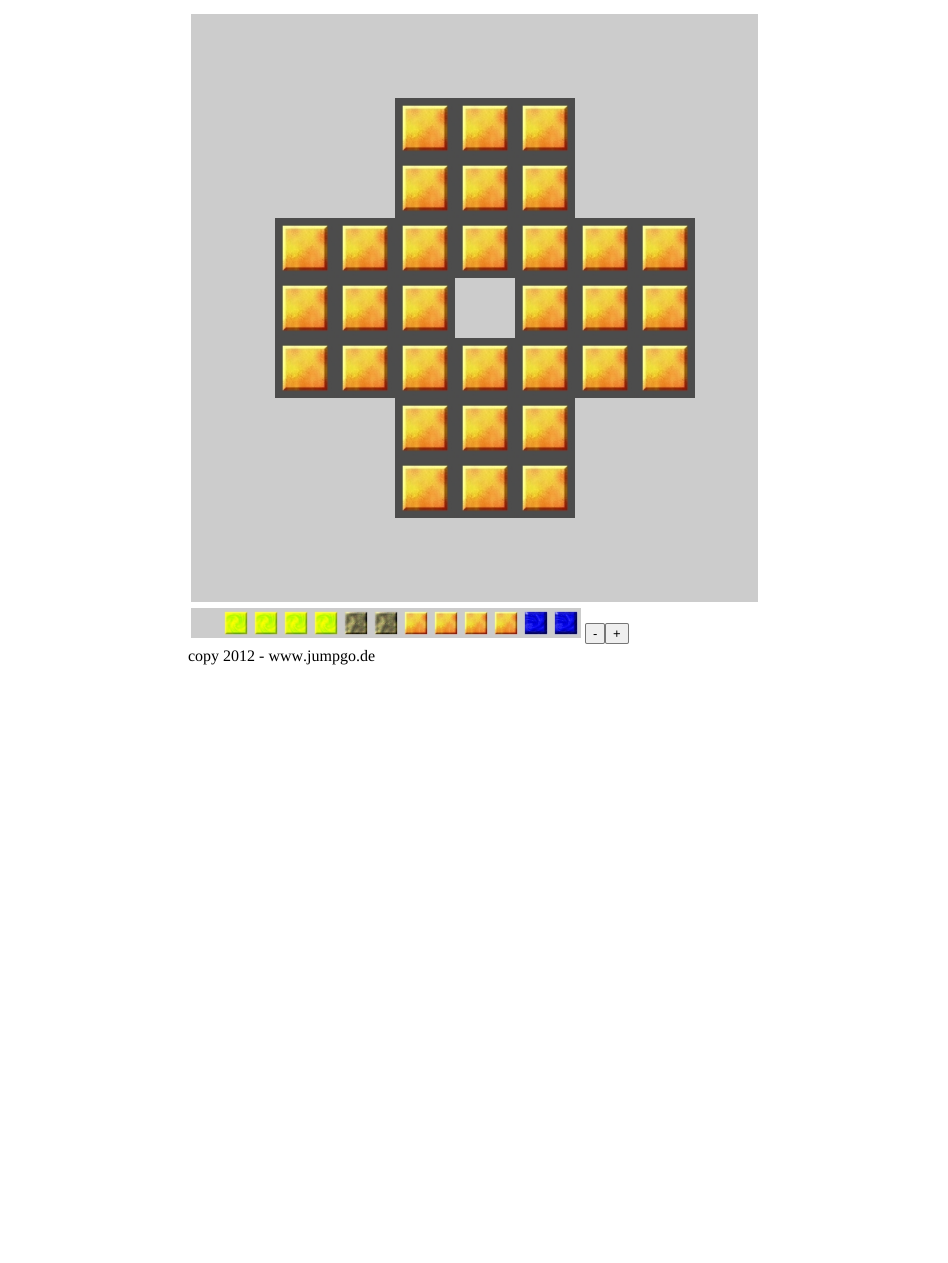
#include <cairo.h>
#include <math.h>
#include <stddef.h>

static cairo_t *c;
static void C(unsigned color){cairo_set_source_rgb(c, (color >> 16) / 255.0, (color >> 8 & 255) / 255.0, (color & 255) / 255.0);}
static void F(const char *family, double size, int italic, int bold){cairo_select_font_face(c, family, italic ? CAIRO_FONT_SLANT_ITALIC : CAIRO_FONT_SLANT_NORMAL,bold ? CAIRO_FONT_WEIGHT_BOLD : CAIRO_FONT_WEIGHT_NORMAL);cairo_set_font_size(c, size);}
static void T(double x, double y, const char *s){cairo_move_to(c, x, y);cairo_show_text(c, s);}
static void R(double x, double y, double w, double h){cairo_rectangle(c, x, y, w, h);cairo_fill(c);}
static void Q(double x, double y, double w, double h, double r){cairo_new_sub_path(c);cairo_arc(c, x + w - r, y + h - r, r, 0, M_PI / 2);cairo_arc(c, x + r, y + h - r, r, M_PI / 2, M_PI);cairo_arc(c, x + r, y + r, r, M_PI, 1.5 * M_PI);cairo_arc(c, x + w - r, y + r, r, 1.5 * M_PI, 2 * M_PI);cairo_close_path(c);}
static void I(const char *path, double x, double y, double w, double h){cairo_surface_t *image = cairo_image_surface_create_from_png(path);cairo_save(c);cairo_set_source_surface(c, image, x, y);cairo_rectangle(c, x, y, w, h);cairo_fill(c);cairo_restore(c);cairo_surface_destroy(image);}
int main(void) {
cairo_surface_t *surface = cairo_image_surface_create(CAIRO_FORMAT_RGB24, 948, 1263);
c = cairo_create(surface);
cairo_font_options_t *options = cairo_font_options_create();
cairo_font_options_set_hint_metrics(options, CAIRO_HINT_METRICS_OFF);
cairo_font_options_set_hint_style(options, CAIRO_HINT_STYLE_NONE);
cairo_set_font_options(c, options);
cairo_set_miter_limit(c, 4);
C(0xffffff);
cairo_paint(c);
C(0xcccccc);
R(191,14,567,588);
I("1.png",395,98,60,60);
I("1.png",455,98,60,60);
I("1.png",515,98,60,60);
I("1.png",395,158,60,60);
I("1.png",455,158,60,60);
I("1.png",515,158,60,60);
I("1.png",275,218,60,60);
I("1.png",335,218,60,60);
I("1.png",395,218,60,60);
I("1.png",455,218,60,60);
I("1.png",515,218,60,60);
I("1.png",575,218,60,60);
I("1.png",635,218,60,60);
I("1.png",275,278,60,60);
I("1.png",335,278,60,60);
I("1.png",395,278,60,60);
I("1.png",515,278,60,60);
I("1.png",575,278,60,60);
I("1.png",635,278,60,60);
I("1.png",275,338,60,60);
I("1.png",335,338,60,60);
I("1.png",395,338,60,60);
I("1.png",455,338,60,60);
I("1.png",515,338,60,60);
I("1.png",575,338,60,60);
I("1.png",635,338,60,60);
I("1.png",395,398,60,60);
I("1.png",455,398,60,60);
I("1.png",515,398,60,60);
I("1.png",395,458,60,60);
I("1.png",455,458,60,60);
I("1.png",515,458,60,60);
R(191,608,30,30);
I("2.png",221,608,30,30);
I("3.png",251,608,30,30);
I("2.png",281,608,30,30);
I("4.png",311,608,30,30);
I("5.png",341,608,30,30);
I("5.png",371,608,30,30);
I("6.png",401,608,30,30);
I("6.png",431,608,30,30);
I("7.png",461,608,30,30);
I("8.png",491,608,30,30);
I("9.png",521,608,30,30);
I("9.png",551,608,30,30);
C(0xefefef);
Q(585.5,623.5,19,20,1.5);
cairo_fill_preserve(c);
C(0x767676);
cairo_set_line_width(c,1);
cairo_stroke(c);
F("Liberation Sans",13,0,0);
C(0x000000);
T(593,638,"-");
C(0xefefef);
Q(605.5,623.5,23,20,1.5);
cairo_fill_preserve(c);
C(0x767676);
cairo_stroke(c);
C(0x000000);
T(613,638,"+");
F("Liberation Serif",16,0,0);
T(188,661,"copy 2012 - www.jumpgo.de");
cairo_surface_write_to_png(surface, "o.png");
cairo_font_options_destroy(options);
cairo_destroy(c);
cairo_surface_destroy(surface);
return 0;
}
